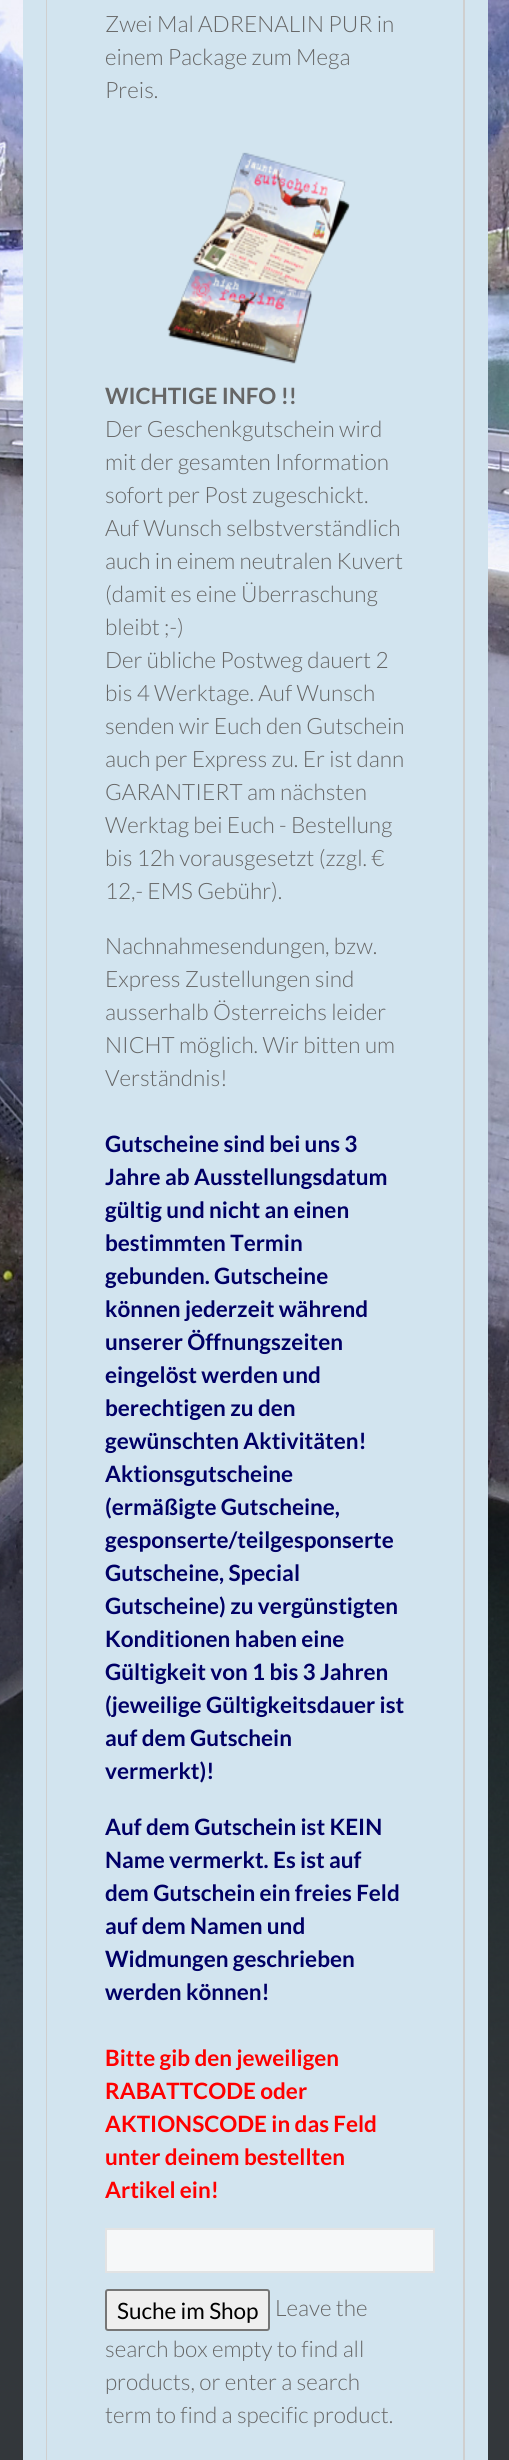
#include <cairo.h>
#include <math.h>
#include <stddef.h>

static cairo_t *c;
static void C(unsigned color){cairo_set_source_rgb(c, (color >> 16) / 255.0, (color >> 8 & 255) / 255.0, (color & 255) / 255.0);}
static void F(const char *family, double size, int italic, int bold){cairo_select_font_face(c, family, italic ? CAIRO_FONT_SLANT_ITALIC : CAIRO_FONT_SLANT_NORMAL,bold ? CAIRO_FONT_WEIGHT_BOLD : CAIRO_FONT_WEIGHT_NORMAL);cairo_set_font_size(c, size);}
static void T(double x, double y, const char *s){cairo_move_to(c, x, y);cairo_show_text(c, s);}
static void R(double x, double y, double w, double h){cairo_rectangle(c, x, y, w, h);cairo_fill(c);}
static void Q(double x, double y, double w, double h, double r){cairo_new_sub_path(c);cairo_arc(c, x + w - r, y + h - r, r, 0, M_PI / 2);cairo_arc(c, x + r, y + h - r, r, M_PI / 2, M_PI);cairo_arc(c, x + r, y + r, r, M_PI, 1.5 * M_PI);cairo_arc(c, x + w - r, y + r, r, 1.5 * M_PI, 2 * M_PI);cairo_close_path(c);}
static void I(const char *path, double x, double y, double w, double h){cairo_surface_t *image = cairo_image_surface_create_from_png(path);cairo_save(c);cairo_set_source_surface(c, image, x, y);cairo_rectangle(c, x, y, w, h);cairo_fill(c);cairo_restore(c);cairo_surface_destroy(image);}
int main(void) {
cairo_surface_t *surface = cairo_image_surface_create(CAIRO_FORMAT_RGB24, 509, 2460);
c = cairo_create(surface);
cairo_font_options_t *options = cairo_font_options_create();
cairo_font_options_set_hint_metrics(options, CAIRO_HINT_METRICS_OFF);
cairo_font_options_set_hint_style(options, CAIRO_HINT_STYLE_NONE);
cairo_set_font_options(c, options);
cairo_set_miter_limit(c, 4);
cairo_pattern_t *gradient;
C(0x33373b);
cairo_paint(c);
I("1.png",0,0,509,2161);
gradient = cairo_pattern_create_linear(255,-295,255,2165);
cairo_pattern_add_color_stop_rgba(gradient,0,0,0,0,0);
cairo_pattern_add_color_stop_rgba(gradient,.7,0.2,0.216,0.231,0);
cairo_pattern_add_color_stop_rgba(gradient,1,0.2,0.216,0.231,1);
cairo_set_source(c,gradient);
cairo_pattern_destroy(gradient);
R(0,1446,509,715);
C(0xd2e4ef);
cairo_rectangle(c,46,-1,418,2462);
cairo_fill_preserve(c);
C(0xcfcfcf);
cairo_stroke(c);
cairo_rectangle(c,34.5,-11.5,442,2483);
C(0xd2e4ef);
cairo_set_line_width(c,23);
cairo_stroke(c);
F("Lato Light",22.5,0,0);
C(0x666666);
T(105,32,"Zwei Mal ADRENALIN PUR in");
T(105,65,"einem Package zum Mega");
T(105,98,"Preis.");
I("2.png",167,152,183,212);
F("Lato",22.5,0,1);
T(105,404,"WICHTIGE INFO !!");
F("Lato Light",22.5,0,0);
T(105,437,"Der Geschenkgutschein wird");
T(105,470,"mit der gesamten Information");
T(105,503,"sofort per Post zugeschickt.");
T(105,536,"Auf Wunsch selbstverständlich");
T(105,569,"auch in einem neutralen Kuvert");
T(105,602,"(damit es eine Überraschung");
T(105,635,"bleibt ;-)");
T(105,668,"Der übliche Postweg dauert 2");
T(105,701,"bis 4 Werktage. Auf Wunsch");
T(105,734,"senden wir Euch den Gutschein");
T(105,767,"auch per Express zu. Er ist dann");
T(105,800,"GARANTIERT am nächsten");
T(105,833,"Werktag bei Euch - Bestellung");
T(105,866,"bis 12h vorausgesetzt (zzgl. €");
T(105,899,"12,- EMS Gebühr).");
T(105,954,"Nachnahmesendungen, bzw.");
T(105,987,"Express Zustellungen sind");
T(105,1020,"ausserhalb Österreichs leider");
T(105,1053,"NICHT möglich. Wir bitten um");
T(105,1086,"Verständnis!");
F("Lato",22.5,0,1);
C(0x000066);
T(105,1152,"Gutscheine sind bei uns 3");
T(105,1185,"Jahre ab Ausstellungsdatum");
T(105,1218,"gültig und nicht an einen");
T(105,1251,"bestimmten Termin");
T(105,1284,"gebunden. Gutscheine");
T(105,1317,"können jederzeit während");
T(105,1350,"unserer Öffnungszeiten");
T(105,1383,"eingelöst werden und");
T(105,1416,"berechtigen zu den");
T(105,1449,"gewünschten Aktivitäten!");
T(105,1482,"Aktionsgutscheine");
T(105,1515,"(ermäßigte Gutscheine,");
T(105,1548,"gesponserte/teilgesponserte");
T(105,1581,"Gutscheine, Special");
T(105,1614,"Gutscheine) zu vergünstigten");
T(105,1647,"Konditionen haben eine");
T(105,1680,"Gültigkeit von 1 bis 3 Jahren");
T(105,1713,"(jeweilige Gültigkeitsdauer ist");
T(105,1746,"auf dem Gutschein");
T(105,1779,"vermerkt)!");
T(105,1835,"Auf dem Gutschein ist KEIN");
T(105,1868,"Name vermerkt. Es ist auf");
T(105,1901,"dem Gutschein ein freies Feld");
T(105,1934,"auf dem Namen und");
T(105,1967,"Widmungen geschrieben");
T(105,2000,"werden können!");
C(0xff0000);
T(105,2066,"Bitte gib den jeweiligen");
T(105,2099,"RABATTCODE oder");
T(105,2132,"AKTIONSCODE in das Feld");
T(105,2165,"unter deinem bestellten");
T(105,2198,"Artikel ein!");
C(0xf6f8f9);
cairo_rectangle(c,106,2229,328,43);
cairo_fill_preserve(c);
C(0xe2e3e4);
cairo_set_line_width(c,2);
cairo_stroke(c);
C(0xefefef);
Q(106,2290,163,40,2);
cairo_fill_preserve(c);
C(0x767676);
cairo_stroke(c);
F("Lato",22.5,0,0);
C(0x000000);
T(117,2319,"Suche im Shop");
F("Lato Light",22.5,0,0);
C(0x666666);
T(275,2316,"Leave the");
T(105,2357,"search box empty to find all");
T(105,2390,"products, or enter a search");
T(105,2423,"term to find a specific product.");
cairo_surface_write_to_png(surface, "o.png");
cairo_font_options_destroy(options);
cairo_destroy(c);
cairo_surface_destroy(surface);
return 0;
}
